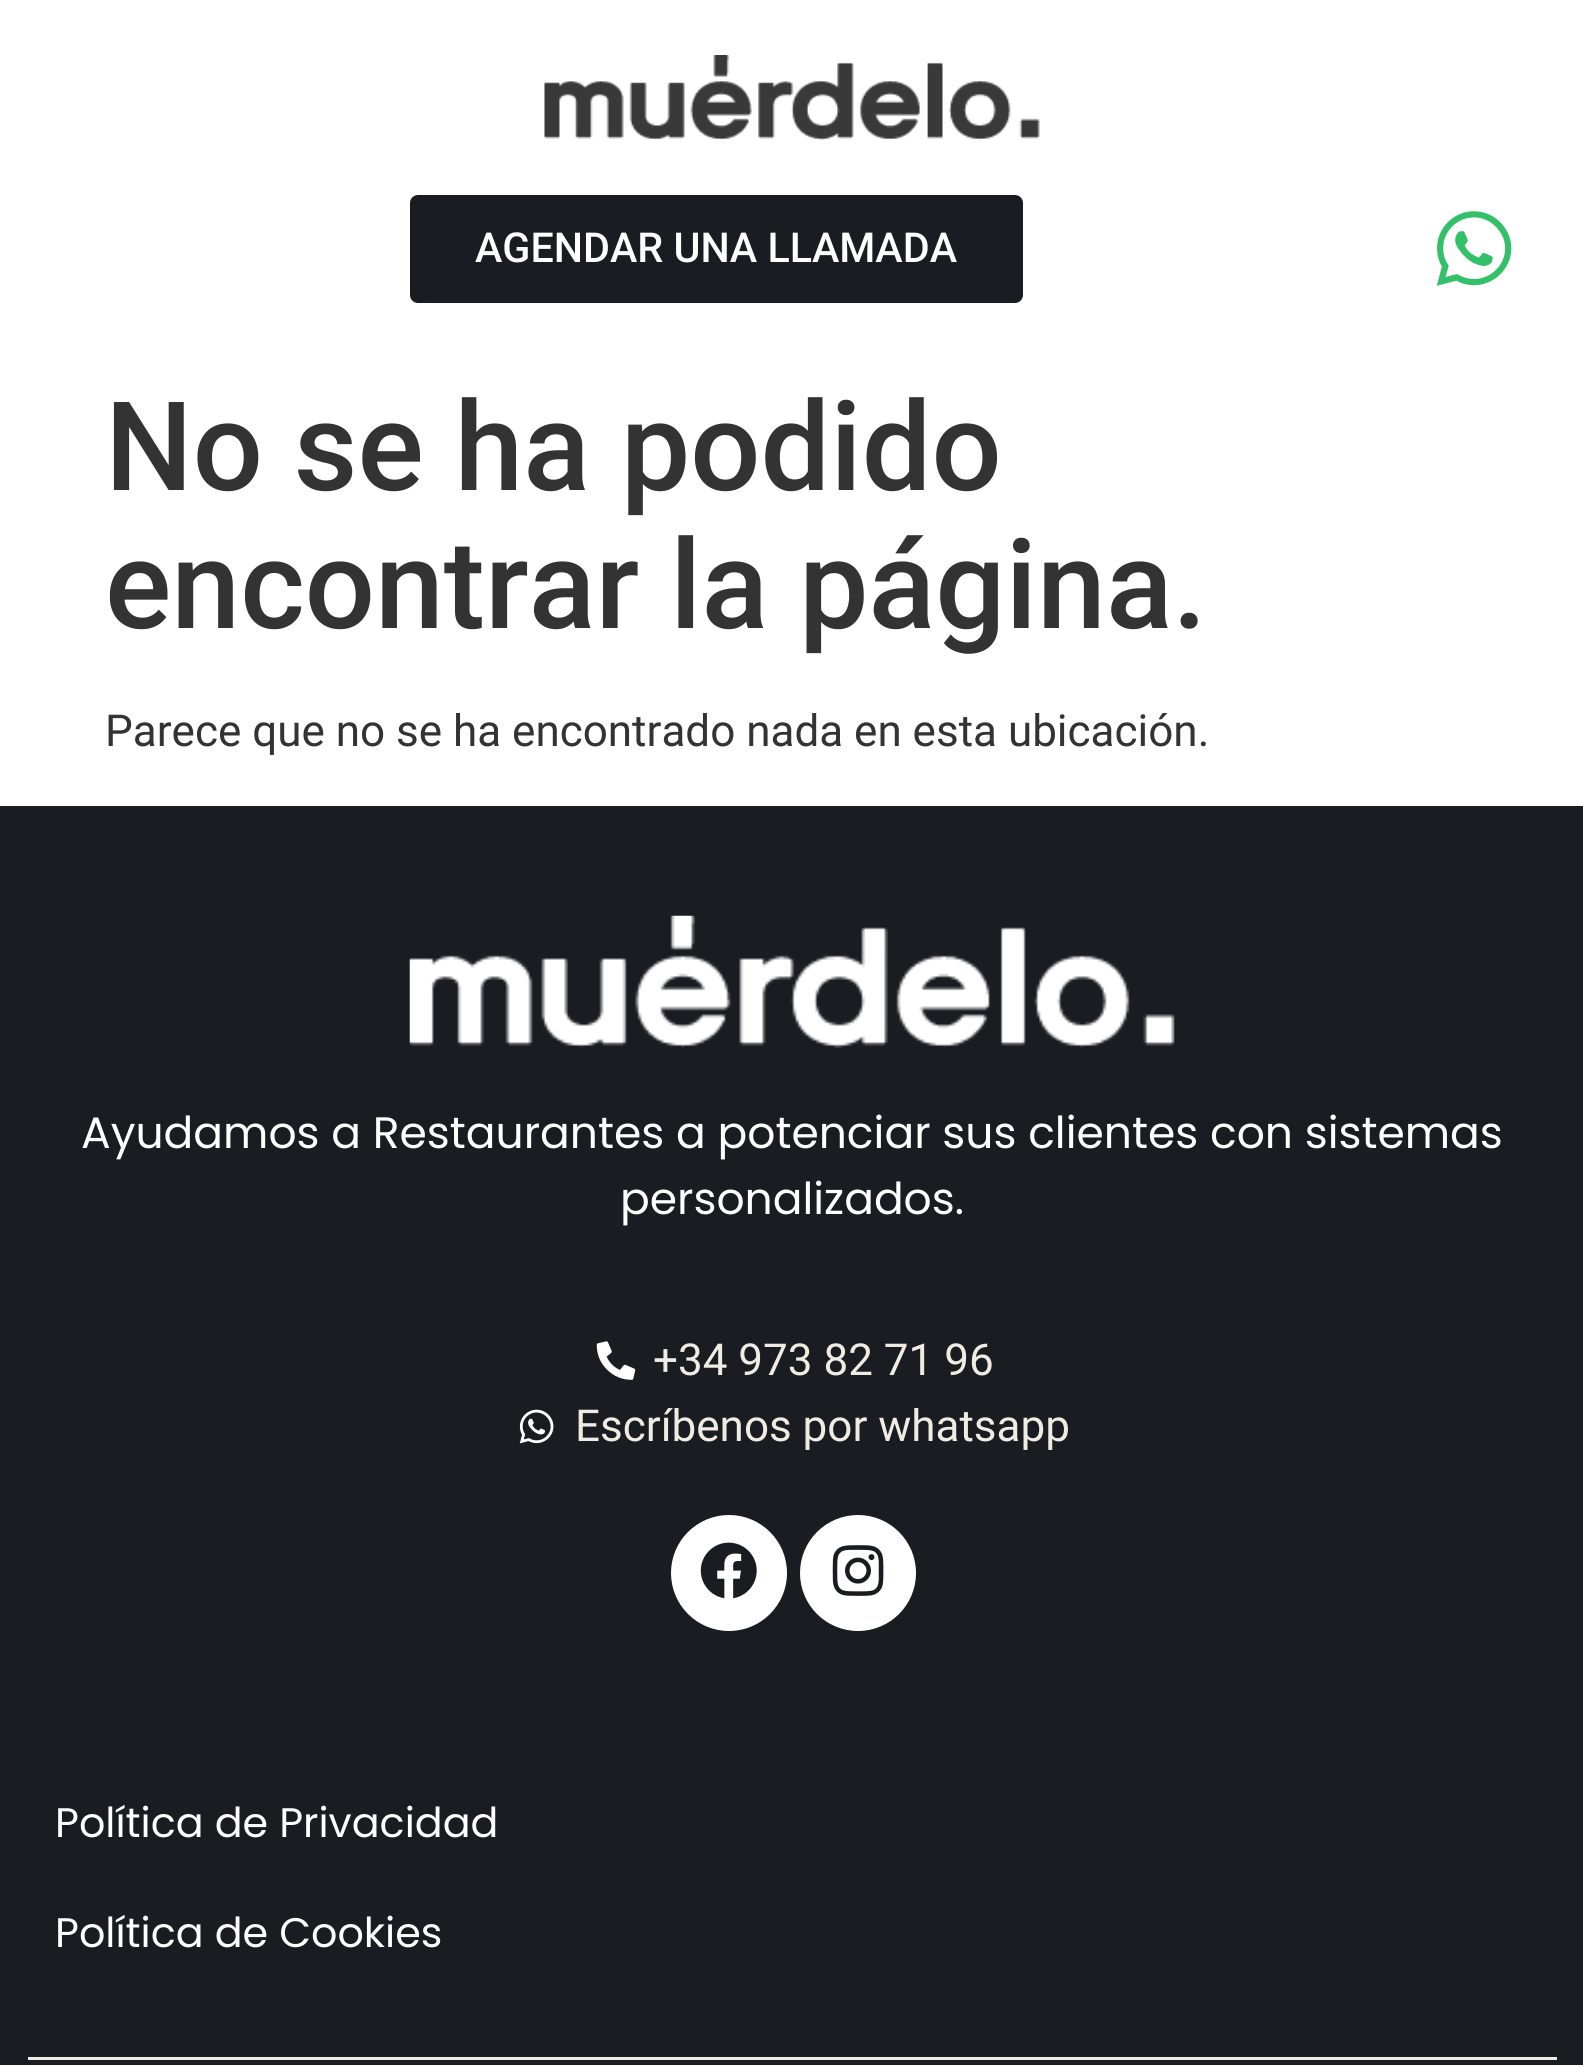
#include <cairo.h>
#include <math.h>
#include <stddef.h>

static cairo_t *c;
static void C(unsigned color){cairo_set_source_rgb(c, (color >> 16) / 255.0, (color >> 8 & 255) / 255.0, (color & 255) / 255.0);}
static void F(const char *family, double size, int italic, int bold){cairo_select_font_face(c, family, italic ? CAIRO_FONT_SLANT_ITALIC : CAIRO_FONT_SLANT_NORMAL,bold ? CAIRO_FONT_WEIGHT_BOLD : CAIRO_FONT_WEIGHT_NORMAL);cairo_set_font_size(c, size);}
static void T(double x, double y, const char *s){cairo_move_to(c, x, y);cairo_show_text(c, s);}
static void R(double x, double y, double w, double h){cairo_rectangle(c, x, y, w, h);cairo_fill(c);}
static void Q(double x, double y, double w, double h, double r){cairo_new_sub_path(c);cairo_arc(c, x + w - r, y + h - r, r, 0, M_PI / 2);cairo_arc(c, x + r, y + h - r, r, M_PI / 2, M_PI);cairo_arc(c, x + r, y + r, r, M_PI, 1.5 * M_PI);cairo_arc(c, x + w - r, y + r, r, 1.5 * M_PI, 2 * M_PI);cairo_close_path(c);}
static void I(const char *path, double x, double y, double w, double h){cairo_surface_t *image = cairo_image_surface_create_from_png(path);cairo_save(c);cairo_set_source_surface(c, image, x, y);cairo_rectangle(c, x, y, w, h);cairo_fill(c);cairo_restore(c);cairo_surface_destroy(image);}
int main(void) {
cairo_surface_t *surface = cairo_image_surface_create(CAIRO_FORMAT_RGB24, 1583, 2065);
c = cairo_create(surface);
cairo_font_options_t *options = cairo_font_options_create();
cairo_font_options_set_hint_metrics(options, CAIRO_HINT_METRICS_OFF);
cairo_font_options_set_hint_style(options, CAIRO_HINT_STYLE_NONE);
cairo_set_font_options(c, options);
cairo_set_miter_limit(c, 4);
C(0xffffff);
cairo_paint(c);
I("1.png",544,55,496,86);
C(0x191c21);
Q(410,195,613,108,8);
cairo_fill(c);
F("Roboto Medium",41.25,0,0);
C(0xffffff);
T(475,262,"AGENDAR UNA LLAMADA");
I("2.png",1436,211,76,75);
F("Roboto Medium",123.75,0,0);
C(0x333333);
T(105,490,"No se ha podido");
T(105,628,"encontrar la página.");
F("Roboto",44,0,0);
T(105,746,"Parece que no se ha encontrado nada en esta ubicación.");
C(0x191c21);
R(0,806,1583,1259);
I("3.png",409,915,766,133);
F("Poppins",44,0,0);
C(0xffffff);
T(81,1148,"Ayudamos a Restaurantes a potenciar sus clientes con sistemas");
T(620,1214,"personalizados.");
I("4.png",596,1341,40,39);
F("Roboto",44,0,0);
C(0xf1ece3);
T(653,1375,"+34 973 82 71 96");
I("5.png",519,1409,35,35);
T(575,1441,"Escríbenos por whatsapp");
C(0xffffff);
cairo_new_path(c);
cairo_arc(c,729,1573,58,0,2 * M_PI);
cairo_fill(c);
I("6.png",700,1542,57,57);
cairo_arc(c,858,1573,58,0,2 * M_PI);
cairo_fill(c);
I("7.png",832,1545,52,51);
F("Poppins",41.25,0,0);
T(55,1837,"Política de Privacidad");
T(55,1947,"Política de Cookies");
C(0xf1ece3);
R(28,2057,1529,3);
cairo_surface_write_to_png(surface, "o.png");
cairo_font_options_destroy(options);
cairo_destroy(c);
cairo_surface_destroy(surface);
return 0;
}
